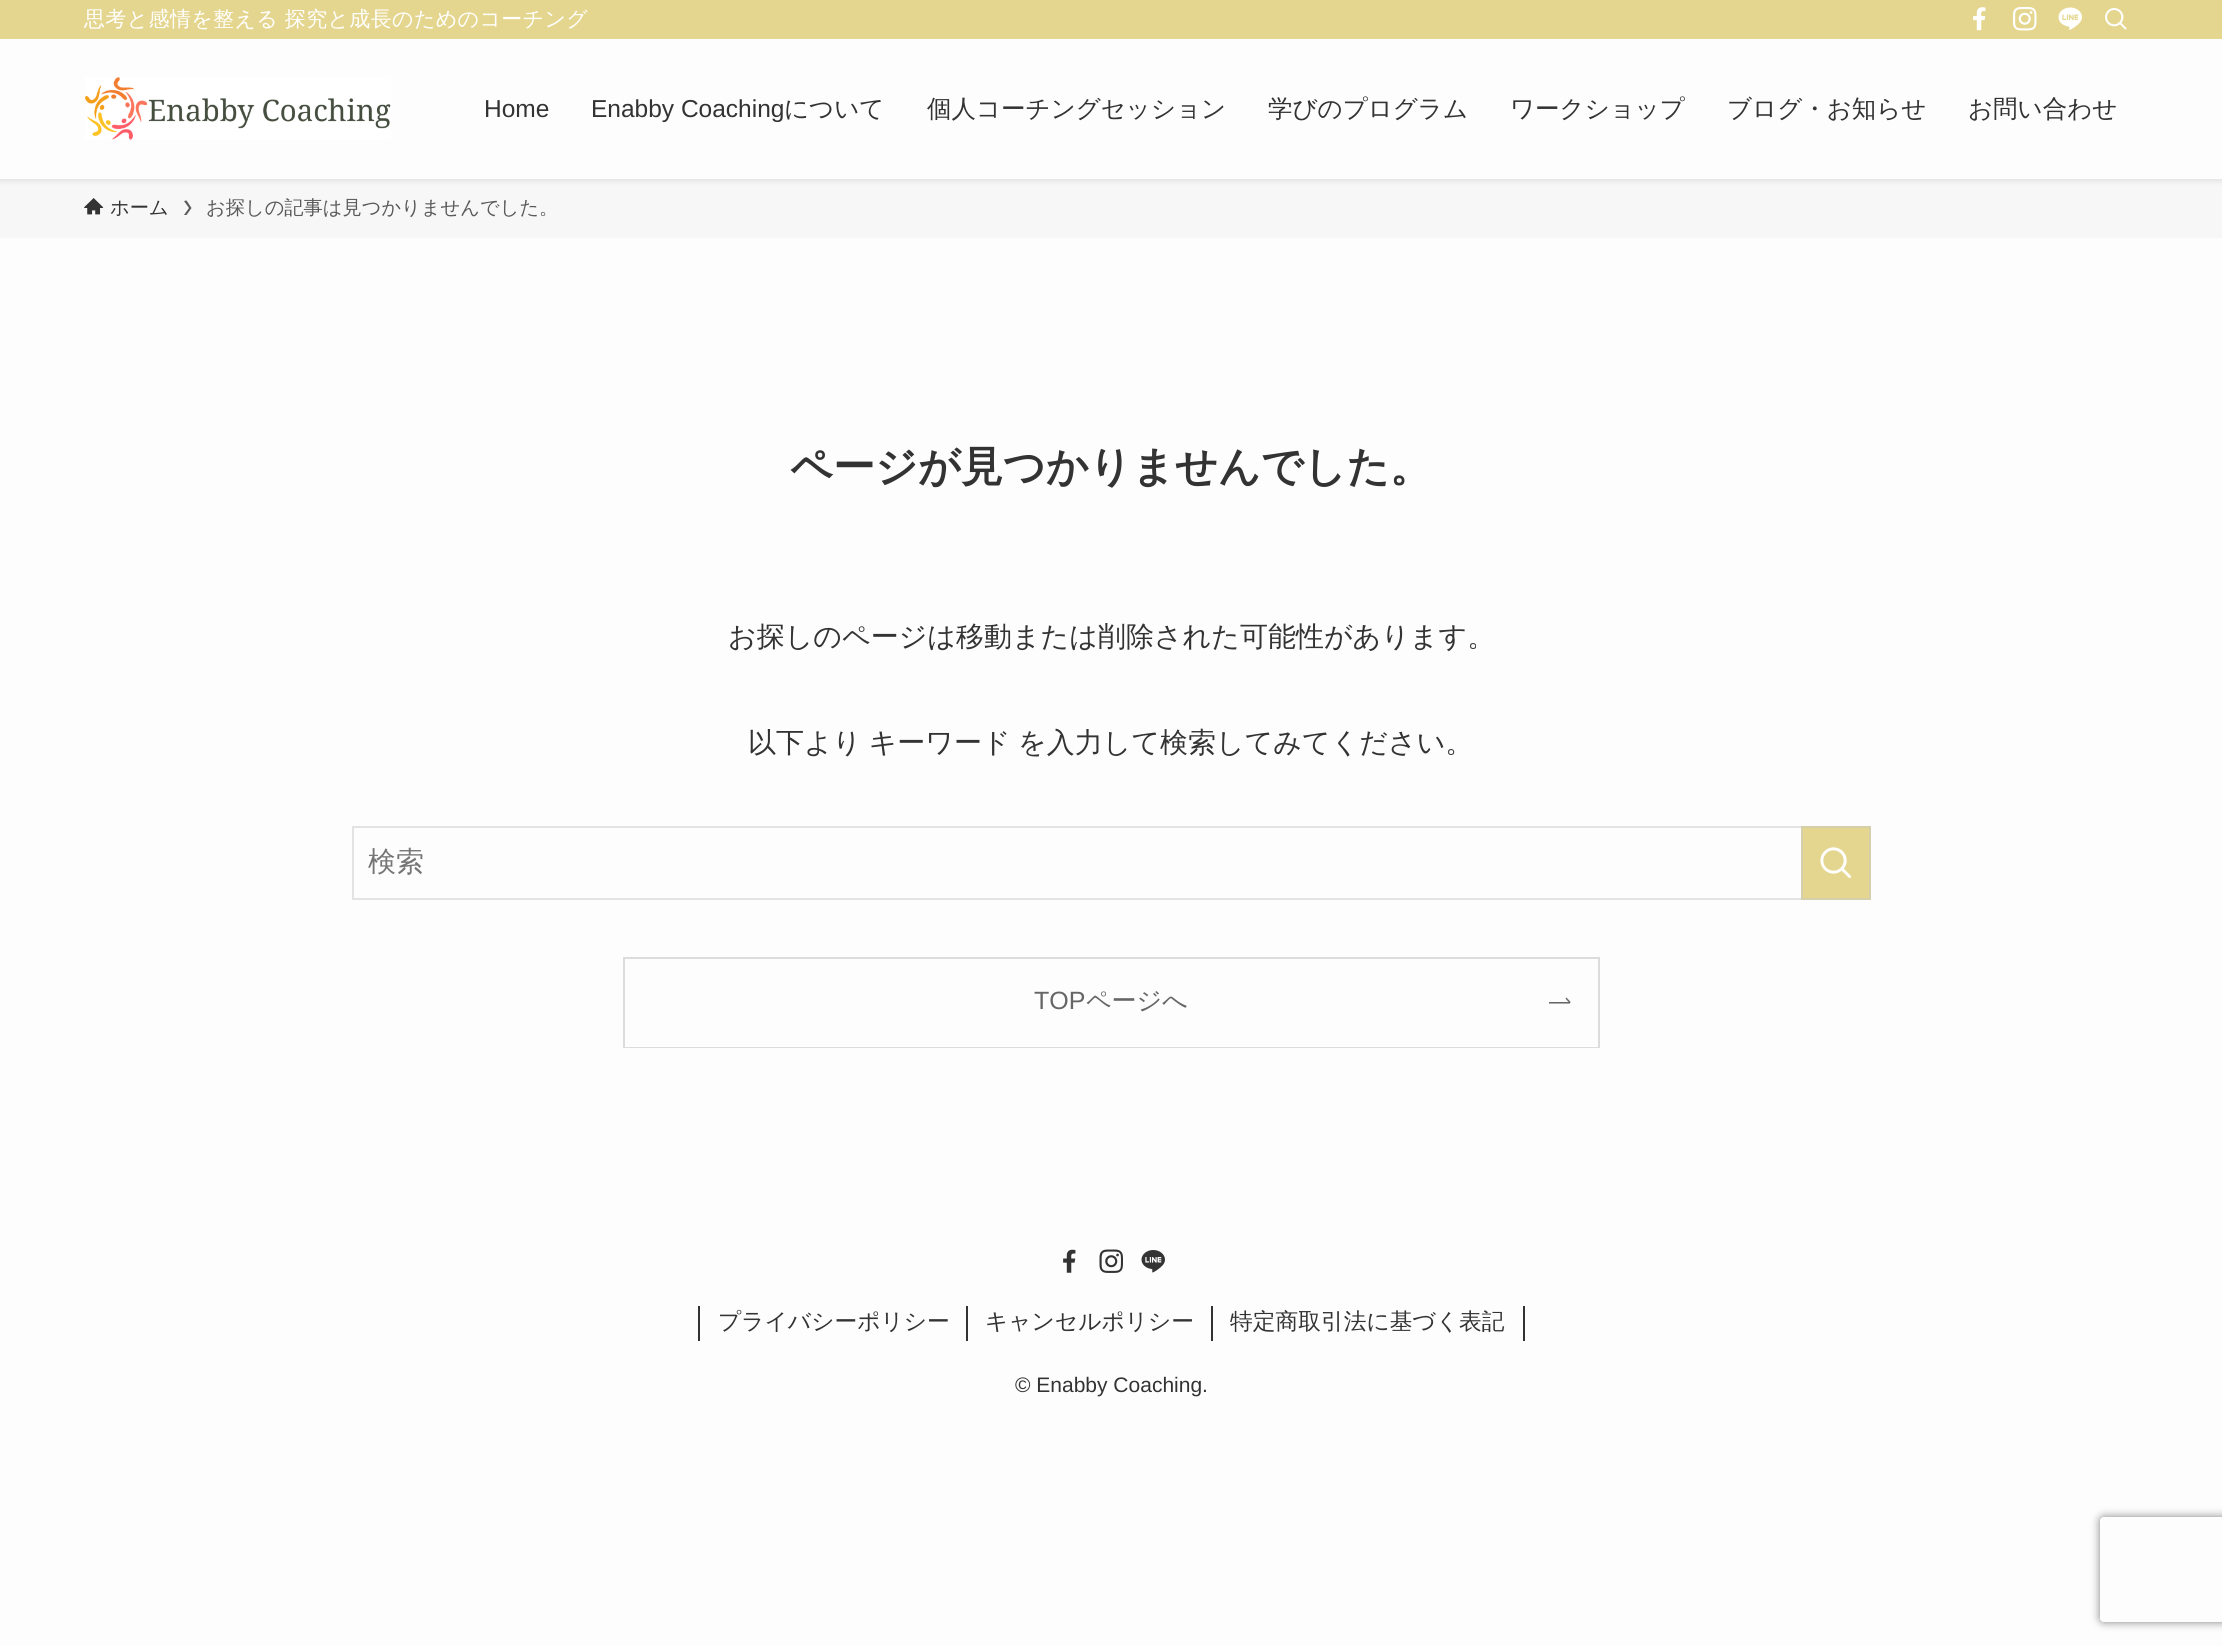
#include <cairo.h>
#include <math.h>
#include <stddef.h>

static cairo_t *c;
static void C(unsigned color){cairo_set_source_rgb(c, (color >> 16) / 255.0, (color >> 8 & 255) / 255.0, (color & 255) / 255.0);}
static void F(const char *family, double size, int italic, int bold){cairo_select_font_face(c, family, italic ? CAIRO_FONT_SLANT_ITALIC : CAIRO_FONT_SLANT_NORMAL,bold ? CAIRO_FONT_WEIGHT_BOLD : CAIRO_FONT_WEIGHT_NORMAL);cairo_set_font_size(c, size);}
static void T(double x, double y, const char *s){cairo_move_to(c, x, y);cairo_show_text(c, s);}
static void L(double x, double y, const char *s, double letter, double word){cairo_move_to(c, x, y);while (*s) {char ch[5] = {0};int n = 0;do ch[n++] = *s++; while ((*s & 0xC0) == 0x80);cairo_show_text(c, ch);cairo_rel_move_to(c, letter + word * (*ch == ' '), 0);}}
static void R(double x, double y, double w, double h){cairo_rectangle(c, x, y, w, h);cairo_fill(c);}
static void Q(double x, double y, double w, double h, double r){cairo_new_sub_path(c);cairo_arc(c, x + w - r, y + h - r, r, 0, M_PI / 2);cairo_arc(c, x + r, y + h - r, r, M_PI / 2, M_PI);cairo_arc(c, x + r, y + r, r, M_PI, 1.5 * M_PI);cairo_arc(c, x + w - r, y + r, r, 1.5 * M_PI, 2 * M_PI);cairo_close_path(c);}
static void S(double x, double y, double w, double h, double r, double blur, double alpha){cairo_push_group_with_content(c, CAIRO_CONTENT_ALPHA);cairo_set_operator(c, CAIRO_OPERATOR_SOURCE);for (int i = 15; i >= -15 && fmin(w, h) + blur * i / 3 > 0; i -= 2) {double e = blur * i / 6;cairo_set_source_rgba(c, 0, 0, 0, alpha * erfc((i - 1) / 8.5) / 2);Q(x - e, y - e, w + 2 * e, h + 2 * e, fmax(0, fmin(r + e + blur * .6, fmin(w, h) / 2 + e)));cairo_fill(c);}cairo_pattern_t *soft = cairo_pop_group(c);cairo_mask(c, soft);cairo_pattern_destroy(soft);}
static void I(const char *path, double x, double y, double w, double h){cairo_surface_t *image = cairo_image_surface_create_from_png(path);cairo_save(c);cairo_set_source_surface(c, image, x, y);cairo_rectangle(c, x, y, w, h);cairo_fill(c);cairo_restore(c);cairo_surface_destroy(image);}
int main(void) {
cairo_surface_t *surface = cairo_image_surface_create(CAIRO_FORMAT_RGB24, 2222, 1646);
c = cairo_create(surface);
cairo_font_options_t *options = cairo_font_options_create();
cairo_font_options_set_hint_metrics(options, CAIRO_HINT_METRICS_OFF);
cairo_font_options_set_hint_style(options, CAIRO_HINT_STYLE_NONE);
cairo_set_font_options(c, options);
cairo_set_miter_limit(c, 4);
C(0xfdfdfd);
cairo_paint(c);
C(0xf7f7f7);
R(0,179,2222,59);
C(0x000000);
S(0,2,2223,178,0,3.5,.12);
C(0xfdfdfd);
R(0,39,2222,140);
C(0xe5d68f);
R(0,0,2222,39);
F("WenQuanYi Zen Hei Medium",21,0,0);
C(0xffffff);
L(84,26,"思考と感情を整える 探究と成長のためのコーチング",.35,0);
I("1.png",1973,7,13,24);
I("2.png",2013,7,24,24);
I("3.png",2058,7,24,23);
I("4.png",2105,8,22,22);
I("5.png",85,77,306,63);
F("Liberation Sans",24.5,0,0);
C(0x333333);
T(484,117,"Home");
T(591,117,"Enabby Coaching");
F("WenQuanYi Zen Hei Medium",24.5,0,0);
T(784,117,"について");
T(927,117,"個人コーチングセッション");
T(1268,117,"学びのプログラム");
T(1510,117,"ワークショップ");
T(1727,117,"ブログ・お知らせ");
T(1968,117,"お問い合わせ");
I("6.png",84,198,20,17);
F("WenQuanYi Zen Hei Medium",19.25,0,0);
T(110,214,"ホーム");
C(0x5a5a5a);
cairo_new_path(c);
cairo_move_to(c,186.5,200.5);
cairo_line_to(c,184,201);
cairo_line_to(c,189,208);
cairo_line_to(c,184,215);
cairo_line_to(c,186.5,215);
cairo_line_to(c,191.5,208);
cairo_close_path(c);
cairo_fill(c);
T(206,214,"お探しの記事は見つかりませんでした。");
F("WenQuanYi Zen Hei",42,0,1);
C(0x333333);
T(790,481,"ページが見つかりませんでした。");
F("WenQuanYi Zen Hei Medium",28,0,0);
T(728,646,"お探しのページは移動または削除された可能性があります。");
L(748,752,"以下より キーワード を入力して検索してみてください。",0,-1);
cairo_rectangle(c,353,827,1517,72);
C(0xe3e3e3);
cairo_stroke(c);
C(0x757575);
T(368,871,"検索");
C(0xe5d68f);
cairo_rectangle(c,1802,827,68,72);
cairo_fill_preserve(c);
C(0xd6cfab);
cairo_stroke(c);
I("7.png",1820,847,32,31);
cairo_rectangle(c,624,958,975,89);
C(0xdcdcdc);
cairo_stroke(c);
C(0xffffff);
R(625,1046,973,1);
F("Liberation Sans",25,0,0);
C(0x666666);
T(1034,1009,"TOP");
F("WenQuanYi Zen Hei Medium",25,0,0);
T(1086,1009,"ページへ");
cairo_new_path(c);
cairo_move_to(c,1570,1003.5);
cairo_line_to(c,1549,1003.5);
cairo_line_to(c,1549,1002);
cairo_line_to(c,1568.5,1002);
cairo_line_to(c,1565.5,998.5);
cairo_line_to(c,1566.5,997.5);
cairo_line_to(c,1570.5,1002);
cairo_close_path(c);
cairo_fill(c);
I("8.png",1063,1249,13,24);
I("9.png",1099,1249,24,24);
I("10.png",1141,1250,24,23);
C(0x333333);
R(966,1306,2,35);
R(698,1306,2,35);
F("WenQuanYi Zen Hei Medium",22.75,0,0);
T(718,1329,"プライバシーポリシー");
R(1211,1306,2,35);
T(985,1329,"キャンセルポリシー");
R(1523,1306,2,35);
T(1230,1329,"特定商取引法に基づく表記");
F("Liberation Sans",21,0,0);
T(1015,1392,"© Enabby Coaching.");
cairo_save(c);
cairo_set_fill_rule(c,CAIRO_FILL_RULE_EVEN_ODD);
cairo_new_path(c);
cairo_move_to(c,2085,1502);
cairo_line_to(c,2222,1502);
cairo_line_to(c,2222,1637);
cairo_line_to(c,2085,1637);
cairo_close_path(c);
cairo_move_to(c,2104,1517);
cairo_line_to(c,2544,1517);
cairo_curve_to(c,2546,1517,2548,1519,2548,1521);
cairo_line_to(c,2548,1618);
cairo_curve_to(c,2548,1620,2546,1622,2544,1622);
cairo_line_to(c,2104,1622);
cairo_curve_to(c,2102,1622,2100,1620,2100,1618);
cairo_line_to(c,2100,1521);
cairo_curve_to(c,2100,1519,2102,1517,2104,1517);
cairo_close_path(c);
cairo_clip(c);
C(0x808080);
S(2100,1517,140,105,4,4.5,1);
cairo_restore(c);
cairo_surface_write_to_png(surface, "o.png");
cairo_font_options_destroy(options);
cairo_destroy(c);
cairo_surface_destroy(surface);
return 0;
}
